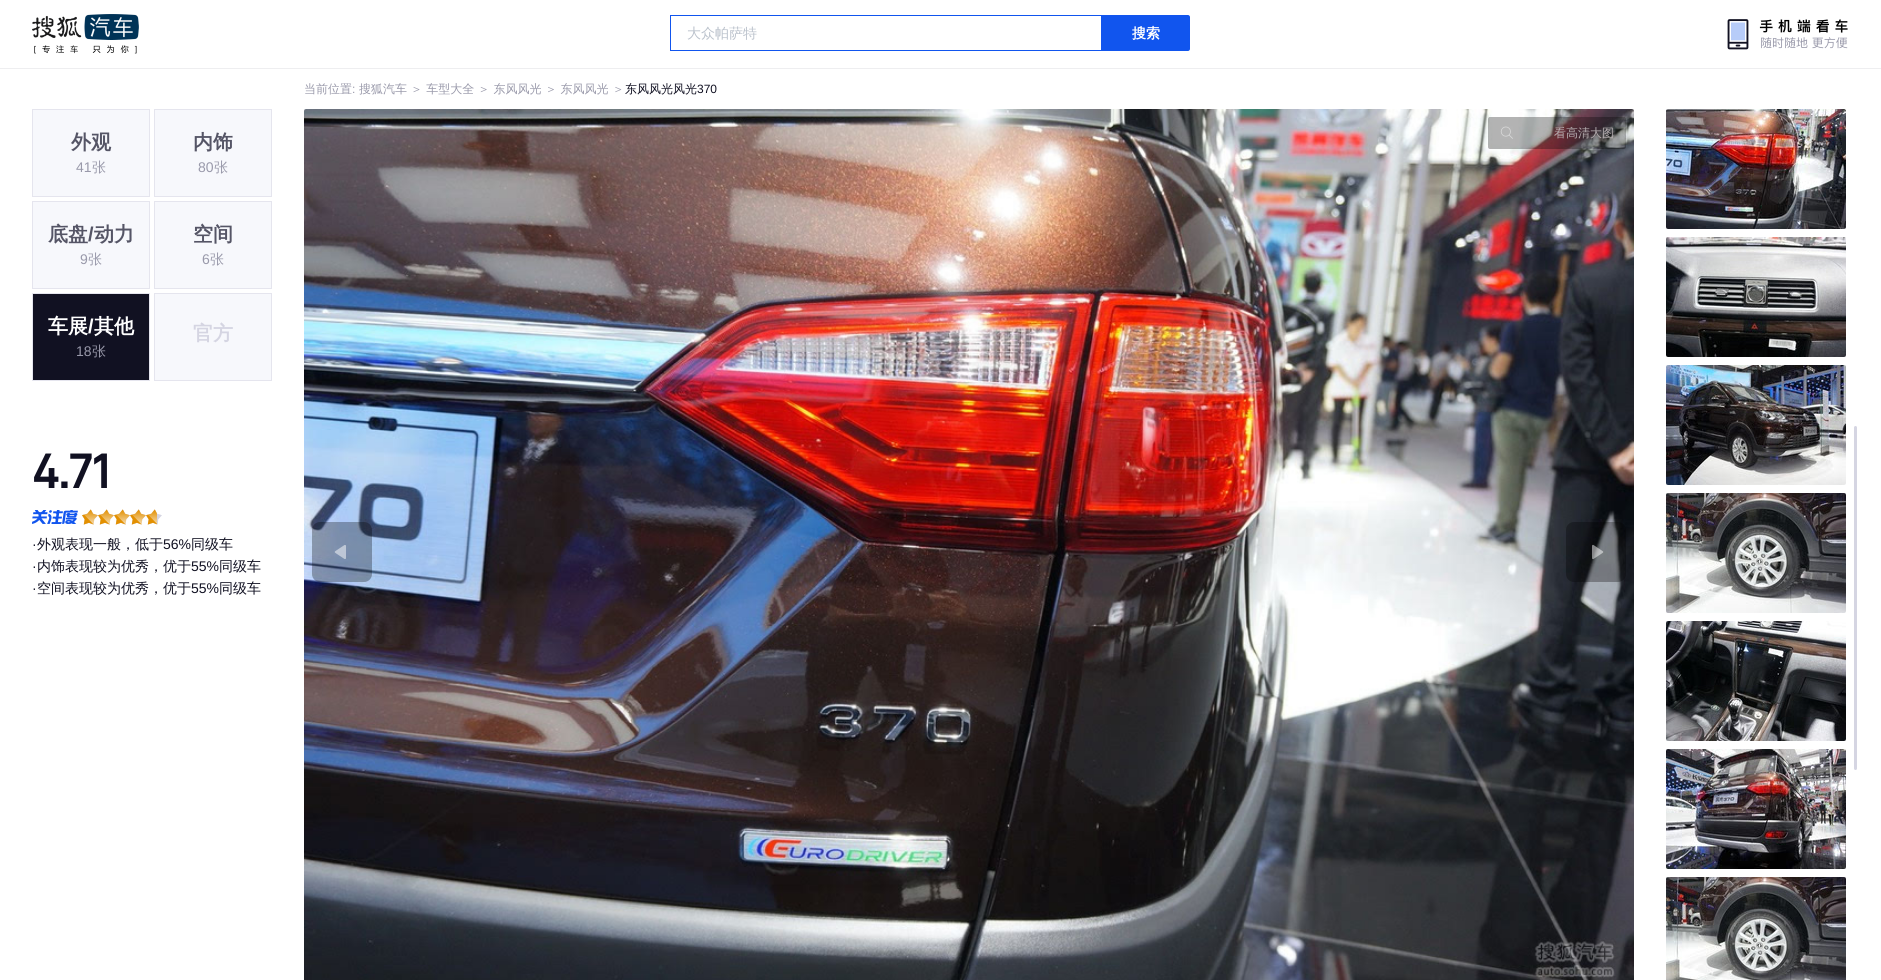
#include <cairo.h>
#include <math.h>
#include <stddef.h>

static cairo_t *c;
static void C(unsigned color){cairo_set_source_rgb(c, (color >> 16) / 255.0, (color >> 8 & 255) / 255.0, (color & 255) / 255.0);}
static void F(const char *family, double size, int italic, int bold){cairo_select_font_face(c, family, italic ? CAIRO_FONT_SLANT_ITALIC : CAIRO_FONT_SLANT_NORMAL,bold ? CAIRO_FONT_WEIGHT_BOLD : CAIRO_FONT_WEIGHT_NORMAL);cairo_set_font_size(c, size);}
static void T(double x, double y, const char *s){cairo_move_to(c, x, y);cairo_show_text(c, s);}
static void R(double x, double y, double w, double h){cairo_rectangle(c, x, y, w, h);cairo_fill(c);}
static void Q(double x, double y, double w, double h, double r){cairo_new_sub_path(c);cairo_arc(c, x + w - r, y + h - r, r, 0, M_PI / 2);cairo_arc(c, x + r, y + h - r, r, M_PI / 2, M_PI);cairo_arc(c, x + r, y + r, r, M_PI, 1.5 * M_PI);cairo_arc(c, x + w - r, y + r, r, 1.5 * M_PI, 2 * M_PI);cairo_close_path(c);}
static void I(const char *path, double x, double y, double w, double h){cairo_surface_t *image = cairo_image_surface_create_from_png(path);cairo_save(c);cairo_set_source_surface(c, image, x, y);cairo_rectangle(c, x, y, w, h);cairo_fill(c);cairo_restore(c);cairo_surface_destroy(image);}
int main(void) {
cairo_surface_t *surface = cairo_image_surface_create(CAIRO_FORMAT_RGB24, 1881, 980);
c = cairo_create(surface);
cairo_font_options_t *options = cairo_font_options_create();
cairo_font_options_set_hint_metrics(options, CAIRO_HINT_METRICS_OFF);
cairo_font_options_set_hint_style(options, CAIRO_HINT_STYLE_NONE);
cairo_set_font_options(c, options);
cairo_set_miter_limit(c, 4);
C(0xffffff);
cairo_paint(c);
C(0xeeeef0);
R(0,68,1881,1);
I("1.png",32,14,107,40);
cairo_rectangle(c,670.5,15.5,431,35);
C(0x1155ee);
cairo_set_line_width(c,1);
cairo_stroke(c);
F("WenQuanYi Zen Hei Medium",14,0,0);
C(0xbbc2cc);
T(687,38,"大众帕萨特");
C(0x1155ee);
cairo_new_path(c);
cairo_move_to(c,1102,15);
cairo_line_to(c,1188,15);
cairo_curve_to(c,1189,15,1190,16,1190,17);
cairo_line_to(c,1190,49);
cairo_curve_to(c,1190,50,1189,51,1188,51);
cairo_line_to(c,1102,51);
cairo_close_path(c);
cairo_fill(c);
F("WenQuanYi Zen Hei",14,0,1);
C(0xffffff);
T(1132,38,"搜索");
I("2.png",1727,19,121,31);
F("WenQuanYi Zen Hei Medium",12,0,0);
C(0x9999aa);
T(304,93,"当前位置");
F("Liberation Sans",12,0,0);
T(352,93,":");
F("WenQuanYi Zen Hei Medium",12,0,0);
T(359,93,"搜狐汽车 ＞ 车型大全 ＞ 东风风光 ＞ 东风风光 ＞");
C(0x111122);
T(625,93,"东风风光风光");
F("Liberation Sans",12,0,0);
T(697,93,"370");
C(0xf7f8fc);
cairo_rectangle(c,32.5,109.5,117,87);
cairo_fill_preserve(c);
C(0xe5e5ee);
cairo_stroke(c);
F("WenQuanYi Zen Hei",20,0,1);
C(0x555566);
T(71,149,"外观");
F("Liberation Sans",14,0,0);
C(0x9999aa);
T(76,172,"41");
F("WenQuanYi Zen Hei Medium",14,0,0);
T(92,172,"张");
C(0xf7f8fc);
cairo_rectangle(c,154.5,109.5,117,87);
cairo_fill_preserve(c);
C(0xe5e5ee);
cairo_stroke(c);
F("WenQuanYi Zen Hei",20,0,1);
C(0x555566);
T(193,149,"内饰");
F("Liberation Sans",14,0,0);
C(0x9999aa);
T(198,172,"80");
F("WenQuanYi Zen Hei Medium",14,0,0);
T(214,172,"张");
C(0xf7f8fc);
cairo_rectangle(c,32.5,201.5,117,87);
cairo_fill_preserve(c);
C(0xe5e5ee);
cairo_stroke(c);
F("WenQuanYi Zen Hei",20,0,1);
C(0x555566);
T(48,241,"底盘");
F("Liberation Sans",20,0,1);
T(88,241,"/");
F("WenQuanYi Zen Hei",20,0,1);
T(94,241,"动力");
F("Liberation Sans",14,0,0);
C(0x9999aa);
T(80,264,"9");
F("WenQuanYi Zen Hei Medium",14,0,0);
T(88,264,"张");
C(0xf7f8fc);
cairo_rectangle(c,154.5,201.5,117,87);
cairo_fill_preserve(c);
C(0xe5e5ee);
cairo_stroke(c);
F("WenQuanYi Zen Hei",20,0,1);
C(0x555566);
T(193,241,"空间");
F("Liberation Sans",14,0,0);
C(0x9999aa);
T(202,264,"6");
F("WenQuanYi Zen Hei Medium",14,0,0);
T(210,264,"张");
C(0x111122);
cairo_rectangle(c,32.5,293.5,117,87);
cairo_fill_preserve(c);
C(0xe5e5ee);
cairo_stroke(c);
F("WenQuanYi Zen Hei",20,0,1);
C(0xffffff);
T(48,333,"车展");
F("Liberation Sans",20,0,1);
T(88,333,"/");
F("WenQuanYi Zen Hei",20,0,1);
T(94,333,"其他");
F("Liberation Sans",14,0,0);
C(0x9999aa);
T(76,356,"18");
F("WenQuanYi Zen Hei Medium",14,0,0);
T(92,356,"张");
C(0xf7f8fc);
cairo_rectangle(c,154.5,293.5,117,87);
cairo_fill_preserve(c);
C(0xe5e5ee);
cairo_stroke(c);
F("WenQuanYi Zen Hei",20,0,1);
C(0xd5d5e2);
T(193,340,"官方");
F("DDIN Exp",48,0,1);
C(0x111122);
T(32,488,"4.71");
I("3.png",32,510,46,14);
I("4.png",82,509,16,16);
I("5.png",82,509,16,16);
I("4.png",98,509,16,16);
I("5.png",98,509,16,16);
I("4.png",114,509,16,16);
I("5.png",114,509,16,16);
I("4.png",130,509,16,16);
I("5.png",130,509,16,16);
I("4.png",146,509,16,16);
I("6.png",146,509,11,16);
F("Liberation Sans",14,0,0);
T(32,549,"·");
F("WenQuanYi Zen Hei Medium",14,0,0);
T(37,549,"外观表现一般，低于");
F("Liberation Sans",14,0,0);
T(163,549,"56%");
F("WenQuanYi Zen Hei Medium",14,0,0);
T(191,549,"同级车");
F("Liberation Sans",14,0,0);
T(32,571,"·");
F("WenQuanYi Zen Hei Medium",14,0,0);
T(37,571,"内饰表现较为优秀，优于");
F("Liberation Sans",14,0,0);
T(191,571,"55%");
F("WenQuanYi Zen Hei Medium",14,0,0);
T(219,571,"同级车");
F("Liberation Sans",14,0,0);
T(32,593,"·");
F("WenQuanYi Zen Hei Medium",14,0,0);
T(37,593,"空间表现较为优秀，优于");
F("Liberation Sans",14,0,0);
T(191,593,"55%");
F("WenQuanYi Zen Hei Medium",14,0,0);
T(219,593,"同级车");
I("7.png",304,109,1330,871);
cairo_set_source_rgba(c,0,0,0,0.3);
Q(1488,117,138,32,2);
cairo_fill(c);
I("8.png",1500,126,13,13);
F("WenQuanYi Zen Hei Medium",12,0,0);
C(0xb6aeb0);
T(1554,137,"看高清大图");
cairo_set_source_rgba(c,0,0,0,0.3);
Q(312,522,60,60,8);
cairo_fill(c);
I("9.png",334,545,12,14);
Q(1566,522,60,60,8);
cairo_fill(c);
I("10.png",1592,544,12,16);
I("11.png",1666,109,180,120);
I("12.png",1666,237,180,120);
I("13.png",1666,365,180,120);
I("14.png",1666,493,180,120);
I("15.png",1666,621,180,120);
I("16.png",1666,749,180,120);
I("17.png",1666,877,180,103);
C(0xd5d5e2);
Q(1854,426,3,344,1.5);
cairo_fill(c);
cairo_surface_write_to_png(surface, "o.png");
cairo_font_options_destroy(options);
cairo_destroy(c);
cairo_surface_destroy(surface);
return 0;
}
